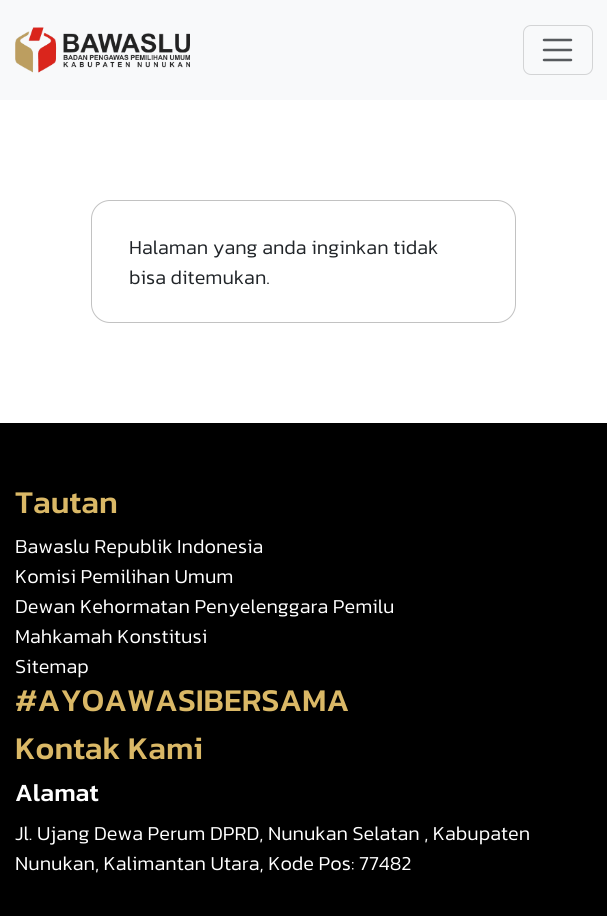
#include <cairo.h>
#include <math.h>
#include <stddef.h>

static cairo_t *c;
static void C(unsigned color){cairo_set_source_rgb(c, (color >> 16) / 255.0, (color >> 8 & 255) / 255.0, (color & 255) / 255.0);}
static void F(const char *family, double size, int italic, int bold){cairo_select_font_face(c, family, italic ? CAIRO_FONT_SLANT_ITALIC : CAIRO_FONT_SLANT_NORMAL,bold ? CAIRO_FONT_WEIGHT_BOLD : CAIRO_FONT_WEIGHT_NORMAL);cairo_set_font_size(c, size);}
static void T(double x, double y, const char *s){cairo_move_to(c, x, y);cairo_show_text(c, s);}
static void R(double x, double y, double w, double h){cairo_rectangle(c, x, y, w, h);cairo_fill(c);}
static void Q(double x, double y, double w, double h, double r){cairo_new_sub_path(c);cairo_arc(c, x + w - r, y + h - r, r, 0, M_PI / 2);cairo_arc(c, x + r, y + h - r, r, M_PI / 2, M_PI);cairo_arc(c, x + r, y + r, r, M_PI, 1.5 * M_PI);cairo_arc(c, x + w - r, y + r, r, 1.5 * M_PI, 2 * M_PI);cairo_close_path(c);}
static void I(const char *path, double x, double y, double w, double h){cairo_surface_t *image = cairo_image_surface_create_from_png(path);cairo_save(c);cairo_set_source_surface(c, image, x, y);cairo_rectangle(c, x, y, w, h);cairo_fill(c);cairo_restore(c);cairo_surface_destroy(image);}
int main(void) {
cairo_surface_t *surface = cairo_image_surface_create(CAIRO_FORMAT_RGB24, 607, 916);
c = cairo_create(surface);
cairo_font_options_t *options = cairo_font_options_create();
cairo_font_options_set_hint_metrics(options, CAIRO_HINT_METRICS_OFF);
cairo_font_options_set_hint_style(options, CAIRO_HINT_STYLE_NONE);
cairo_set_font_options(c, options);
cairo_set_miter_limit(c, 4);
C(0xffffff);
cairo_paint(c);
C(0xf8f9fa);
R(0,0,607,100);
I("1.png",15,27,175,46);
Q(523.5,25.5,69,49,7.5);
C(0xd3d4d5);
cairo_set_line_width(c,1);
cairo_stroke(c);
cairo_new_path(c);
cairo_move_to(c,544,40);
cairo_line_to(c,571,40);
cairo_move_to(c,544,50);
cairo_line_to(c,571,50);
cairo_move_to(c,544,60);
cairo_line_to(c,571,60);
C(0x575a5d);
cairo_set_line_width(c,2.5);
cairo_set_line_cap(c,CAIRO_LINE_CAP_ROUND);
cairo_stroke(c);
Q(91.5,200.5,424,122,18.5);
C(0xc2c2c2);
cairo_set_line_width(c,1);
cairo_set_line_cap(c,CAIRO_LINE_CAP_BUTT);
cairo_stroke(c);
F("Kanit Light",20,0,0);
C(0x212529);
T(129,254,"Halaman yang anda inginkan tidak");
T(129,284,"bisa ditemukan.");
C(0x000000);
R(0,423,607,493);
F("Kanit Medium",32,0,0);
C(0xdab866);
T(15,513,"Tautan");
F("Kanit Light",20,0,0);
C(0xffffff);
T(15,553,"Bawaslu Republik Indonesia");
T(15,583,"Komisi Pemilihan Umum");
T(15,613,"Dewan Kehormatan Penyelenggara Pemilu");
T(15,643,"Mahkamah Konstitusi");
T(15,673,"Sitemap");
F("Kanit Medium",32,0,0);
C(0xdab866);
T(15,711,"#AYOAWASIBERSAMA");
T(15,759,"Kontak Kami");
F("Kanit Medium",25,0,0);
C(0xffffff);
T(15,801,"Alamat");
F("Kanit Light",20,0,0);
T(15,840,"Jl. Ujang Dewa Perum DPRD, Nunukan Selatan , Kabupaten");
T(15,870,"Nunukan, Kalimantan Utara, Kode Pos: 77482");
cairo_surface_write_to_png(surface, "o.png");
cairo_font_options_destroy(options);
cairo_destroy(c);
cairo_surface_destroy(surface);
return 0;
}
